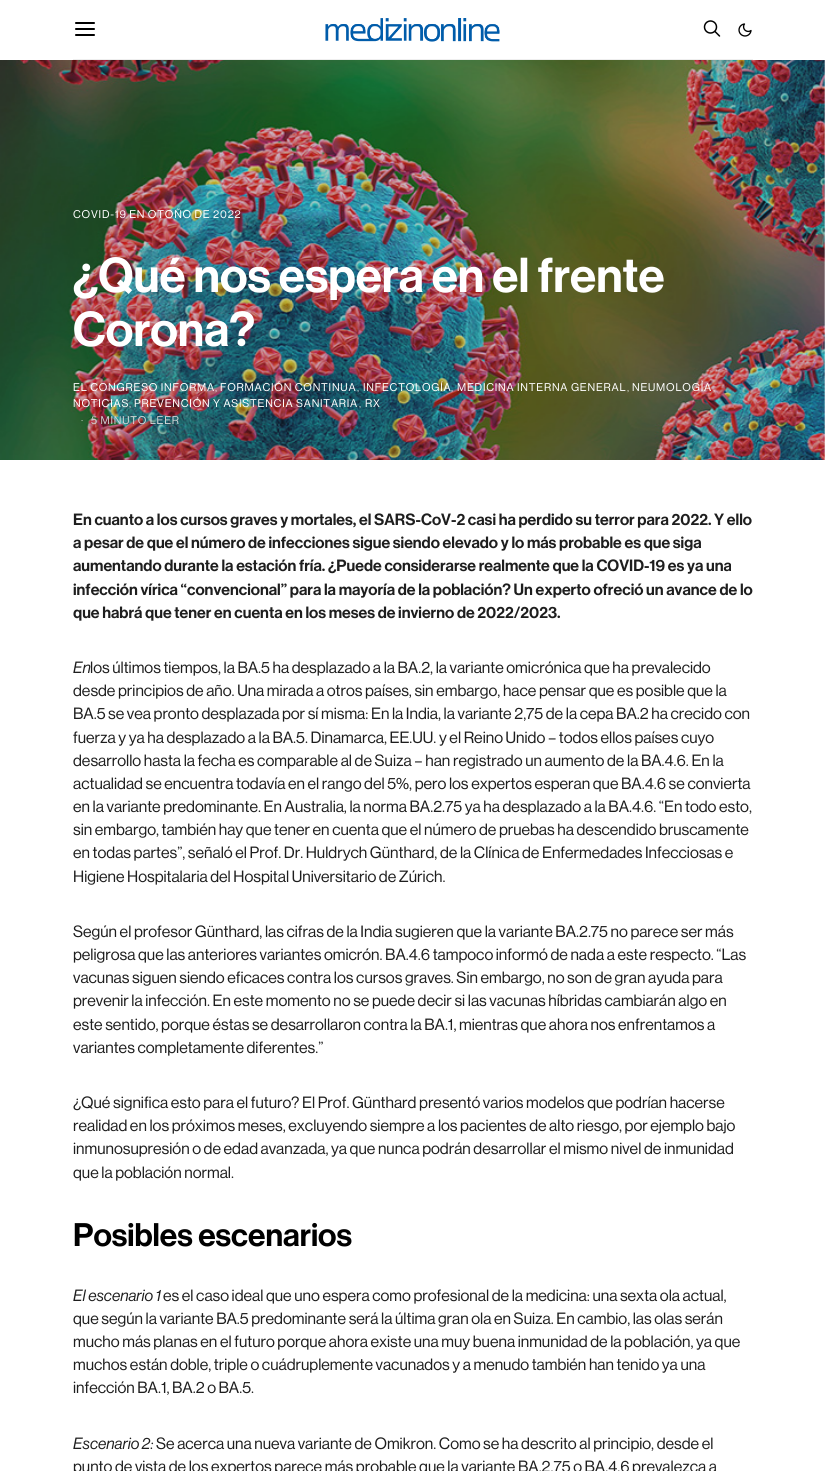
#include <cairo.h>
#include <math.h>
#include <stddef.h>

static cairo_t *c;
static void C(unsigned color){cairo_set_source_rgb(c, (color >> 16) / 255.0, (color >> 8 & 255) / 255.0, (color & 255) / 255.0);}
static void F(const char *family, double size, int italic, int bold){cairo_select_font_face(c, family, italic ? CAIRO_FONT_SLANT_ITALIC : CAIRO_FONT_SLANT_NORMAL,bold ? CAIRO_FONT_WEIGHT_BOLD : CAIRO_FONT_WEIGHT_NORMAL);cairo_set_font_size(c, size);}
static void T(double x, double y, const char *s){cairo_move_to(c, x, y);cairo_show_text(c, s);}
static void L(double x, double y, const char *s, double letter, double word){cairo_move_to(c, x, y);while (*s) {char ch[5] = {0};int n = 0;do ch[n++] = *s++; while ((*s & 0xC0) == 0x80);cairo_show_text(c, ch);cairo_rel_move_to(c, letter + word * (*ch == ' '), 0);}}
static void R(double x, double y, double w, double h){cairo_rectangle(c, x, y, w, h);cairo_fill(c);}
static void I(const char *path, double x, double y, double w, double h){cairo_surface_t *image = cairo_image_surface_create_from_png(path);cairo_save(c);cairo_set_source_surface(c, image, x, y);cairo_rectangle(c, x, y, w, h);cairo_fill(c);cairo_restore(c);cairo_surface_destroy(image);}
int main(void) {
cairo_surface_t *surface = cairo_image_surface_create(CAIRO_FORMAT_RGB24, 825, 1471);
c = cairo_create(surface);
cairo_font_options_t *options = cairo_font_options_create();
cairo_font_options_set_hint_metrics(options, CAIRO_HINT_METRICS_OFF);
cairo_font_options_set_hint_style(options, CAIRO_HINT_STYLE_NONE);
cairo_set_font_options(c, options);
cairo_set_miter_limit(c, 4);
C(0xffffff);
cairo_paint(c);
C(0xeeeeee);
R(73,59,680,1);
I("1.png",75,22,20,14);
I("2.png",325,18,175,24);
I("3.png",703,20,18,17);
I("4.png",738,23,14,14);
I("5.png",0,60,825,400);
F("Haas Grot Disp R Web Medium",11,0,0);
C(0xffffff);
L(73,218,"COVID-19 EN OTOÑO DE 2022",.8,0);
F("Haas Grot Disp R Web SemiBold",48,0,0);
T(73,292,"¿Qué nos espera en el frente");
T(73,346,"Corona?");
F("Haas Grot Disp R Web Medium",11,0,0);
L(73,391,"EL CONGRESO INFORMA",.8,0);
C(0xead7db);
L(215,391,",",.8,0);
C(0xffffff);
L(220,391,"FORMACIÓN CONTINUA",.8,0);
C(0xc4d2d6);
L(357,391,",",.8,0);
C(0xffffff);
L(363,391,"INFECTOLOGÍA",.8,0);
C(0xdbd8dc);
L(451,391,",",.8,0);
C(0xffffff);
L(457,391,"MEDICINA INTERNA GENERAL",.8,0);
C(0xd5d6cc);
L(627,391,",",.8,0);
C(0xffffff);
L(632,391,"NEUMOLOGÍA",.8,0);
C(0xf1dcdd);
L(713,391,",",.8,0);
C(0xffffff);
L(73,407,"NOTICIAS",.8,0);
C(0xcad8da);
L(129,407,",",.8,0);
C(0xffffff);
L(134,407,"PREVENCIÓN Y ASISTENCIA SANITARIA",.8,0);
C(0xc4d2d6);
L(359,407,",",.8,0);
C(0xffffff);
L(365,407,"RX",.8,0);
C(0xc9d7cb);
L(81,424,"·",.8,0);
C(0xd1d6d7);
L(91,424,"5 MINUTO LEER",.8,0);
F("Haas Grot Disp R Web SemiBold",16,0,0);
C(0x1e1e1e);
T(73,525,"En cuanto a los cursos graves y mortales, el SARS-CoV-2 casi ha perdido su terror para 2022. Y ello");
T(73,548,"a pesar de que el número de infecciones sigue siendo elevado y lo más probable es que siga");
T(73,571,"aumentando durante la estación fría. ¿Puede considerarse realmente que la COVID-19 es ya una");
T(73,595,"infección vírica “convencional” para la mayoría de la población? Un experto ofreció un avance de lo");
T(73,618,"que habrá que tener en cuenta en los meses de invierno de 2022/2023.");
F("Haas Grot Disp R Web Medium",16,1,0);
T(73,673,"En");
F("Haas Grot Disp R Web Medium",16,0,0);
T(90,673,"los últimos tiempos, la BA.5 ha desplazado a la BA.2, la variante omicrónica que ha prevalecido");
T(73,696,"desde principios de año. Una mirada a otros países, sin embargo, hace pensar que es posible que la");
T(73,719,"BA.5 se vea pronto desplazada por sí misma: En la India, la variante 2,75 de la cepa BA.2 ha crecido con");
T(73,743,"fuerza y ya ha desplazado a la BA.5. Dinamarca, EE.UU. y el Reino Unido – todos ellos países cuyo");
T(73,766,"desarrollo hasta la fecha es comparable al de Suiza – han registrado un aumento de la BA.4.6. En la");
T(73,789,"actualidad se encuentra todavía en el rango del 5%, pero los expertos esperan que BA.4.6 se convierta");
T(73,812,"en la variante predominante. En Australia, la norma BA.2.75 ya ha desplazado a la BA.4.6. “En todo esto,");
T(73,835,"sin embargo, también hay que tener en cuenta que el número de pruebas ha descendido bruscamente");
T(73,858,"en todas partes”, señaló el Prof. Dr. Huldrych Günthard, de la Clínica de Enfermedades Infecciosas e");
T(73,882,"Higiene Hospitalaria del Hospital Universitario de Zúrich.");
T(73,937,"Según el profesor Günthard, las cifras de la India sugieren que la variante BA.2.75 no parece ser más");
T(73,960,"peligrosa que las anteriores variantes omicrón. BA.4.6 tampoco informó de nada a este respecto. “Las");
T(73,983,"vacunas siguen siendo eficaces contra los cursos graves. Sin embargo, no son de gran ayuda para");
T(73,1006,"prevenir la infección. En este momento no se puede decir si las vacunas híbridas cambiarán algo en");
T(73,1030,"este sentido, porque éstas se desarrollaron contra la BA.1, mientras que ahora nos enfrentamos a");
T(73,1053,"variantes completamente diferentes.”");
T(73,1108,"¿Qué significa esto para el futuro? El Prof. Günthard presentó varios modelos que podrían hacerse");
T(73,1131,"realidad en los próximos meses, excluyendo siempre a los pacientes de alto riesgo, por ejemplo bajo");
T(73,1154,"inmunosupresión o de edad avanzada, ya que nunca podrán desarrollar el mismo nivel de inmunidad");
T(73,1178,"que la población normal.");
F("Haas Grot Disp R Web SemiBold",32,0,0);
C(0x000000);
T(73,1246,"Posibles escenarios");
F("Haas Grot Disp R Web Medium",16,1,0);
C(0x1e1e1e);
T(73,1301,"El escenario 1");
F("Haas Grot Disp R Web Medium",16,0,0);
T(163,1301,"es el caso ideal que uno espera como profesional de la medicina: una sexta ola actual,");
T(73,1324,"que según la variante BA.5 predominante será la última gran ola en Suiza. En cambio, las olas serán");
T(73,1347,"mucho más planas en el futuro porque ahora existe una muy buena inmunidad de la población, ya que");
T(73,1370,"muchos están doble, triple o cuádruplemente vacunados y a menudo también han tenido ya una");
T(73,1393,"infección BA.1, BA.2 o BA.5.");
F("Haas Grot Disp R Web Medium",16,1,0);
T(73,1449,"Escenario 2:");
F("Haas Grot Disp R Web Medium",16,0,0);
T(156,1449,"Se acerca una nueva variante de Omikron. Como se ha descrito al principio, desde el");
T(73,1472,"punto de vista de los expertos parece más probable que la variante BA.2.75 o BA.4.6 prevalezca a");
cairo_surface_write_to_png(surface, "o.png");
cairo_font_options_destroy(options);
cairo_destroy(c);
cairo_surface_destroy(surface);
return 0;
}
